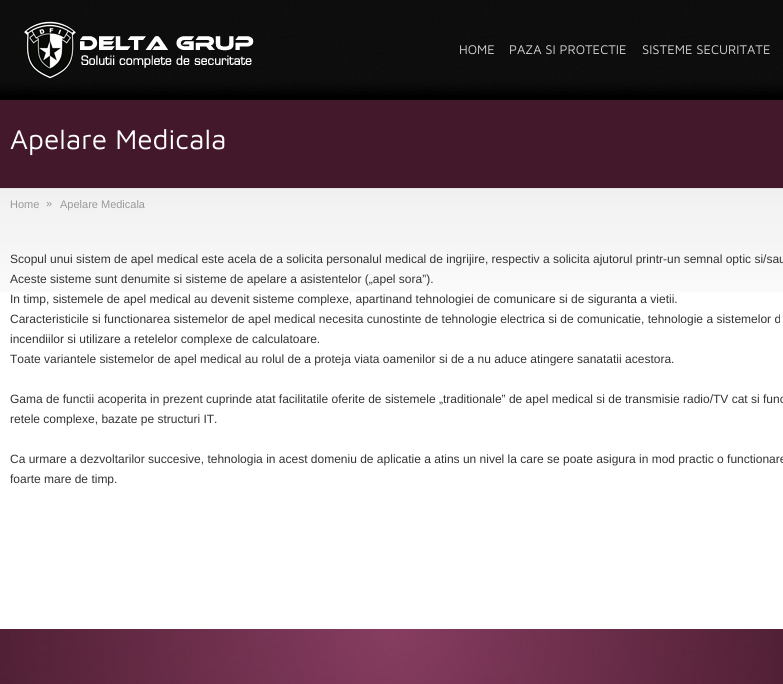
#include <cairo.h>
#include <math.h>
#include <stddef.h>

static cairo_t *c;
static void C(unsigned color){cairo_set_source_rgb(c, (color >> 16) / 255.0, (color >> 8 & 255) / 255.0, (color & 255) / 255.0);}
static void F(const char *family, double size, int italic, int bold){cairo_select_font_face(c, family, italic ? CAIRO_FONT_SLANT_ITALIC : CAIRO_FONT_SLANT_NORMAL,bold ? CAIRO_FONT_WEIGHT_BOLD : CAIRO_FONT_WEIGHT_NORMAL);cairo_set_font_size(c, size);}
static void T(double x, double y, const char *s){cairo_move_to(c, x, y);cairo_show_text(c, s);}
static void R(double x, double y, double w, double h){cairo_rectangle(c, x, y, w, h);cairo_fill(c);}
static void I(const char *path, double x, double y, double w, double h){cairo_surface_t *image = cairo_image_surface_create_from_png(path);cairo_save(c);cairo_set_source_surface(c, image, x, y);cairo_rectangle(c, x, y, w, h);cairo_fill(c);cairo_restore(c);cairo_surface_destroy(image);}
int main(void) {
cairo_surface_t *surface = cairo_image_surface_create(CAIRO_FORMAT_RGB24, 783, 684);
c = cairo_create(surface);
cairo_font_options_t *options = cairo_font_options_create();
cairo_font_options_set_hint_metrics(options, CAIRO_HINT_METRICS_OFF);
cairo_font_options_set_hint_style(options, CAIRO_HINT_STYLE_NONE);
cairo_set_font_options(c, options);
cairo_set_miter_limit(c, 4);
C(0xffffff);
cairo_paint(c);
C(0x000000);
R(0,95,783,5);
I("1.png",0,0,783,95);
I("2.png",23,21,231,58);
F("Maven Pro",13,0,0);
C(0xd6d6d6);
T(459,54,"HOME");
T(509,54,"PAZA SI PROTECTIE");
T(642,54,"SISTEME SECURITATE");
C(0x43182b);
R(0,100,783,88);
F("Maven Pro",28,0,0);
C(0xffffff);
T(10,149,"Apelare Medicala");
I("3.png",0,189,783,103);
C(0xe0e0e0);
R(0,188,783,1);
F("Liberation Sans",11,0,0);
C(0x999999);
T(10,208,"Home");
T(46,207,"»");
T(60,208,"Apelare Medicala");
F("Liberation Sans",12,0,0);
C(0x333333);
T(10,263,"Scopul unui sistem de apel medical este acela de a solicita personalul medical de ingrijire, respectiv a solicita ajutorul printr-un semnal optic si/sau");
T(10,283,"Aceste sisteme sunt denumite si sisteme de apelare a asistentelor („apel sora”).");
T(10,303,"In timp, sistemele de apel medical au devenit sisteme complexe, apartinand tehnologiei de comunicare si de siguranta a vietii.");
T(10,323,"Caracteristicile si functionarea sistemelor de apel medical necesita cunostinte de tehnologie electrica si de comunicatie, tehnologie a sistemelor d");
T(10,343,"incendiilor si utilizare a retelelor complexe de calculatoare.");
T(10,363,"Toate variantele sistemelor de apel medical au rolul de a proteja viata oamenilor si de a nu aduce atingere sanatatii acestora.");
T(10,403,"Gama de functii acoperita in prezent cuprinde atat facilitatile oferite de sistemele „traditionale” de apel medical si de transmisie radio/TV cat si func");
T(10,423,"retele complexe, bazate pe structuri IT.");
T(10,463,"Ca urmare a dezvoltarilor succesive, tehnologia in acest domeniu de aplicatie a atins un nivel la care se poate asigura in mod practic o functionare");
T(10,483,"foarte mare de timp.");
I("4.png",0,629,783,55);
cairo_surface_write_to_png(surface, "o.png");
cairo_font_options_destroy(options);
cairo_destroy(c);
cairo_surface_destroy(surface);
return 0;
}
